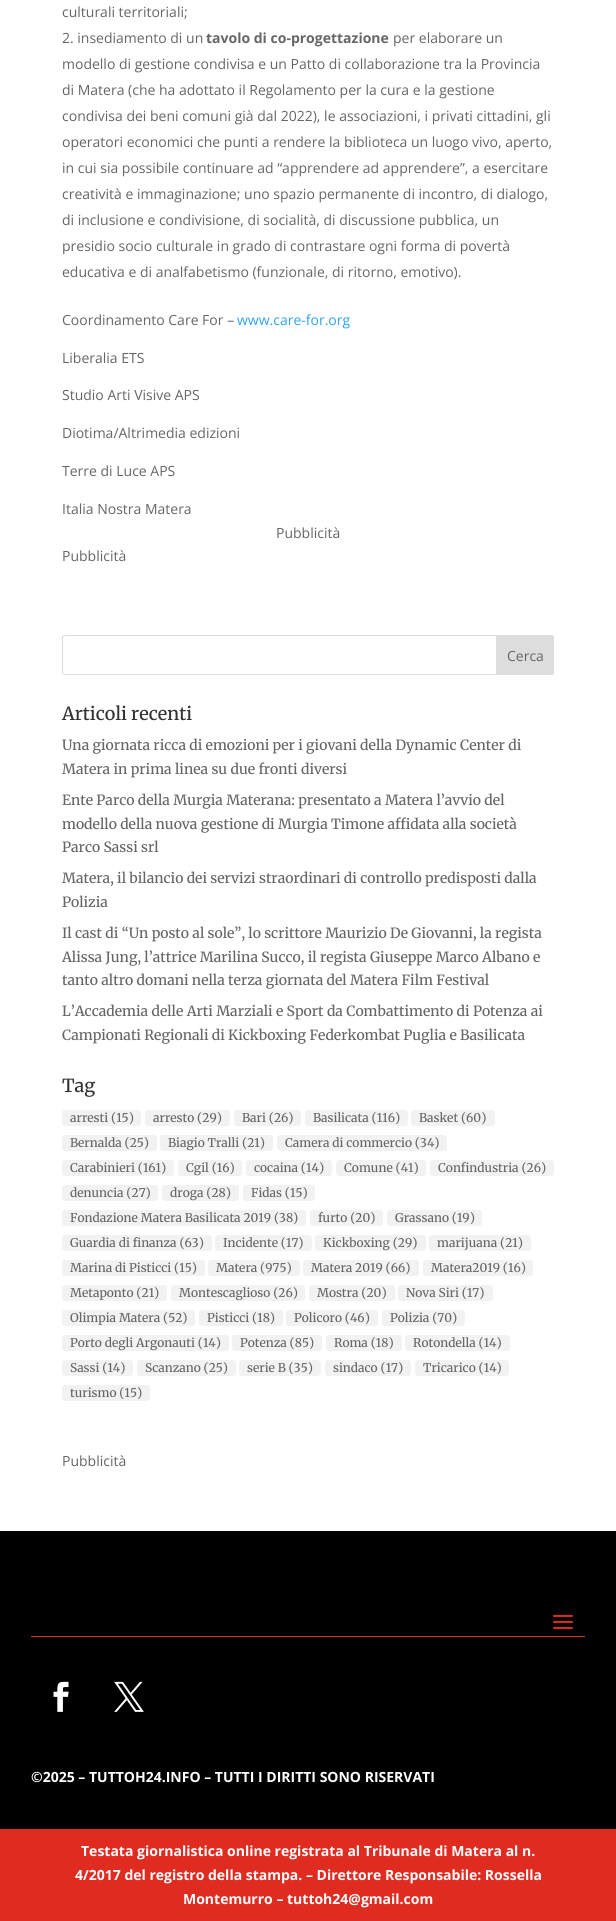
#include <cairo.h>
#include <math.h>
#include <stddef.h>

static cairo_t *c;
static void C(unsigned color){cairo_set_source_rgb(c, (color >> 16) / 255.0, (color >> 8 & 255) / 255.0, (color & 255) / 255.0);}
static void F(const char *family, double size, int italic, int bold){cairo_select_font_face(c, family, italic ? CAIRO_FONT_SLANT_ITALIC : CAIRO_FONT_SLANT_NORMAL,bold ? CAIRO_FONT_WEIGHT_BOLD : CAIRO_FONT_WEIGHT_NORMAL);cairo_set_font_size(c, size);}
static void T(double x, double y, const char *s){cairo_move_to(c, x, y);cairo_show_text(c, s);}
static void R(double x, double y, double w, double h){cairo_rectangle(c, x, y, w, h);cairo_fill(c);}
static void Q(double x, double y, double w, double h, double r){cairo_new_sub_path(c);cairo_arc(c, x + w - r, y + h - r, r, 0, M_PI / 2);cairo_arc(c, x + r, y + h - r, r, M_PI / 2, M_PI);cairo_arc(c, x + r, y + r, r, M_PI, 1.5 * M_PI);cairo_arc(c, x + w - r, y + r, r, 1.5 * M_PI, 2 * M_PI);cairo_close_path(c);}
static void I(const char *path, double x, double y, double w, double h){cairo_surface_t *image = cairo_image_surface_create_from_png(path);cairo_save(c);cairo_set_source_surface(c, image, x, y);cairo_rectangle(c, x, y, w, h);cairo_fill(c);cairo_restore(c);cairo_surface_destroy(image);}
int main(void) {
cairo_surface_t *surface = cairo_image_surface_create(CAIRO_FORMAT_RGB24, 616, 1921);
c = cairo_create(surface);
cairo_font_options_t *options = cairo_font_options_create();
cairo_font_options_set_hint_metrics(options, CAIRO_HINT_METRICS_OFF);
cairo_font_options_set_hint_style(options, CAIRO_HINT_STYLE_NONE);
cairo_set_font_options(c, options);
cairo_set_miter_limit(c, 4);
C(0xffffff);
cairo_paint(c);
F("Open Sans",14,0,0);
C(0x666666);
T(62,17,"culturali territoriali;");
T(62,43,"2. insediamento di un");
F("Open Sans",14,0,1);
T(206,43,"tavolo di co-progettazione");
F("Open Sans",14,0,0);
T(393,43,"per elaborare un");
T(62,69,"modello di gestione condivisa e un Patto di collaborazione tra la Provincia");
T(62,95,"di Matera (che ha adottato il Regolamento per la cura e la gestione");
T(62,121,"condivisa dei beni comuni già dal 2022), le associazioni, i privati cittadini, gli");
T(62,147,"operatori economici che punti a rendere la biblioteca un luogo vivo, aperto,");
T(62,173,"in cui sia possibile continuare ad “apprendere ad apprendere”, a esercitare");
T(62,199,"creatività e immaginazione; uno spazio permanente di incontro, di dialogo,");
T(62,225,"di inclusione e condivisione, di socialità, di discussione pubblica, un");
T(62,251,"presidio socio culturale in grado di contrastare ogni forma di povertà");
T(62,277,"educativa e di analfabetismo (funzionale, di ritorno, emotivo).");
T(62,325,"Coordinamento Care For –");
C(0x2ea3f2);
T(237,325,"www.care-for.org");
C(0x666666);
T(62,363,"Liberalia ETS");
T(62,400,"Studio Arti Visive APS");
T(62,438,"Diotima/Altrimedia edizioni");
T(62,476,"Terre di Luce APS");
T(62,514,"Italia Nostra Matera");
T(276,538,"Pubblicità");
T(62,561,"Pubblicità");
Q(62.5,635.5,491,39,2.5);
C(0xdddddd);
cairo_set_line_width(c,1);
cairo_stroke(c);
cairo_new_path(c);
cairo_move_to(c,496.5,635.5);
cairo_line_to(c,551,635.5);
cairo_curve_to(c,552.5,635.5,553.5,636.5,553.5,638);
cairo_line_to(c,553.5,672);
cairo_curve_to(c,553.5,673.5,552.5,674.5,551,674.5);
cairo_line_to(c,496.5,674.5);
cairo_close_path(c);
cairo_fill_preserve(c);
cairo_stroke(c);
C(0x666666);
T(507,661,"Cerca");
F("Merriweather Medium",18,0,0);
C(0x333333);
T(62,720,"Articoli recenti");
F("Merriweather Medium",14,0,0);
C(0x666666);
T(62,750,"Una giornata ricca di emozioni per i giovani della Dynamic Center di");
T(62,774,"Matera in prima linea su due fronti diversi");
T(62,805,"Ente Parco della Murgia Materana: presentato a Matera l’avvio del");
T(62,829,"modello della nuova gestione di Murgia Timone affidata alla società");
T(62,852,"Parco Sassi srl");
T(62,883,"Matera, il bilancio dei servizi straordinari di controllo predisposti dalla");
T(62,907,"Polizia");
T(62,938,"Il cast di “Un posto al sole”, lo scrittore Maurizio De Giovanni, la regista");
T(62,962,"Alissa Jung, l’attrice Marilina Succo, il regista Giuseppe Marco Albano e");
T(62,985,"tanto altro domani nella terza giornata del Matera Film Festival");
T(62,1016,"L’Accademia delle Arti Marziali e Sport da Combattimento di Potenza ai");
T(62,1040,"Campionati Regionali di Kickboxing Federkombat Puglia e Basilicata");
F("Merriweather Medium",18,0,0);
C(0x333333);
T(62,1092,"Tag");
C(0xf2f2f2);
Q(62,1110,79,16,3);
cairo_fill(c);
F("Merriweather Medium",12,0,0);
C(0x666666);
T(70,1122,"arresti (15)");
C(0xf2f2f2);
Q(145,1110,85,16,3);
cairo_fill(c);
C(0x666666);
T(153,1122,"arresto (29)");
C(0xf2f2f2);
Q(234,1110,67,16,3);
cairo_fill(c);
C(0x666666);
T(242,1122,"Bari (26)");
C(0xf2f2f2);
Q(305,1110,103,16,3);
cairo_fill(c);
C(0x666666);
T(313,1122,"Basilicata (116)");
C(0xf2f2f2);
Q(411,1110,84,16,3);
cairo_fill(c);
C(0x666666);
T(419,1122,"Basket (60)");
C(0xf2f2f2);
Q(62,1135,95,16,3);
cairo_fill(c);
C(0x666666);
T(70,1147,"Bernalda (25)");
C(0xf2f2f2);
Q(160,1135,113,16,3);
cairo_fill(c);
C(0x666666);
T(168,1147,"Biagio Tralli (21)");
C(0xf2f2f2);
Q(277,1135,170,16,3);
cairo_fill(c);
C(0x666666);
T(285,1147,"Camera di commercio (34)");
C(0xf2f2f2);
Q(62,1160,112,16,3);
cairo_fill(c);
C(0x666666);
T(70,1172,"Carabinieri (161)");
C(0xf2f2f2);
Q(178,1160,64,16,3);
cairo_fill(c);
C(0x666666);
T(186,1172,"Cgil (16)");
C(0xf2f2f2);
Q(246,1160,86,16,3);
cairo_fill(c);
C(0x666666);
T(254,1172,"cocaina (14)");
C(0xf2f2f2);
Q(336,1160,90,16,3);
cairo_fill(c);
C(0x666666);
T(344,1172,"Comune (41)");
C(0xf2f2f2);
Q(430,1160,124,16,3);
cairo_fill(c);
C(0x666666);
T(438,1172,"Confindustria (26)");
C(0xf2f2f2);
Q(62,1185,96,16,3);
cairo_fill(c);
C(0x666666);
T(70,1197,"denuncia (27)");
C(0xf2f2f2);
Q(162,1185,77,16,3);
cairo_fill(c);
C(0x666666);
T(170,1197,"droga (28)");
C(0xf2f2f2);
Q(243,1185,72,16,3);
cairo_fill(c);
C(0x666666);
T(251,1197,"Fidas (15)");
C(0xf2f2f2);
Q(62,1210,244,16,3);
cairo_fill(c);
C(0x666666);
T(70,1222,"Fondazione Matera Basilicata 2019 (38)");
C(0xf2f2f2);
Q(310,1210,73,16,3);
cairo_fill(c);
C(0x666666);
T(318,1222,"furto (20)");
C(0xf2f2f2);
Q(387,1210,95,16,3);
cairo_fill(c);
C(0x666666);
T(395,1222,"Grassano (19)");
C(0xf2f2f2);
Q(62,1235,150,16,3);
cairo_fill(c);
C(0x666666);
T(70,1247,"Guardia di finanza (63)");
C(0xf2f2f2);
Q(215,1235,97,16,3);
cairo_fill(c);
C(0x666666);
T(223,1247,"Incidente (17)");
C(0xf2f2f2);
Q(315,1235,111,16,3);
cairo_fill(c);
C(0x666666);
T(323,1247,"Kickboxing (29)");
C(0xf2f2f2);
Q(429,1235,102,16,3);
cairo_fill(c);
C(0x666666);
T(437,1247,"marijuana (21)");
C(0xf2f2f2);
Q(62,1260,143,16,3);
cairo_fill(c);
C(0x666666);
T(70,1272,"Marina di Pisticci (15)");
C(0xf2f2f2);
Q(208,1260,92,16,3);
cairo_fill(c);
C(0x666666);
T(216,1272,"Matera (975)");
C(0xf2f2f2);
Q(303,1260,116,16,3);
cairo_fill(c);
C(0x666666);
T(311,1272,"Matera 2019 (66)");
C(0xf2f2f2);
Q(423,1260,110,16,3);
cairo_fill(c);
C(0x666666);
T(431,1272,"Matera2019 (16)");
C(0xf2f2f2);
Q(62,1285,105,16,3);
cairo_fill(c);
C(0x666666);
T(70,1297,"Metaponto (21)");
C(0xf2f2f2);
Q(171,1285,134,16,3);
cairo_fill(c);
C(0x666666);
T(179,1297,"Montescaglioso (26)");
C(0xf2f2f2);
Q(309,1285,86,16,3);
cairo_fill(c);
C(0x666666);
T(317,1297,"Mostra (20)");
C(0xf2f2f2);
Q(398,1285,95,16,3);
cairo_fill(c);
C(0x666666);
T(406,1297,"Nova Siri (17)");
C(0xf2f2f2);
Q(62,1310,133,16,3);
cairo_fill(c);
C(0x666666);
T(70,1322,"Olimpia Matera (52)");
C(0xf2f2f2);
Q(199,1310,84,16,3);
cairo_fill(c);
C(0x666666);
T(207,1322,"Pisticci (18)");
C(0xf2f2f2);
Q(286,1310,92,16,3);
cairo_fill(c);
C(0x666666);
T(294,1322,"Policoro (46)");
C(0xf2f2f2);
Q(382,1310,83,16,3);
cairo_fill(c);
C(0x666666);
T(390,1322,"Polizia (70)");
C(0xf2f2f2);
Q(62,1335,167,16,3);
cairo_fill(c);
C(0x666666);
T(70,1347,"Porto degli Argonauti (14)");
C(0xf2f2f2);
Q(232,1335,90,16,3);
cairo_fill(c);
C(0x666666);
T(240,1347,"Potenza (85)");
C(0xf2f2f2);
Q(326,1335,76,16,3);
cairo_fill(c);
C(0x666666);
T(334,1347,"Roma (18)");
C(0xf2f2f2);
Q(405,1335,105,16,3);
cairo_fill(c);
C(0x666666);
T(413,1347,"Rotondella (14)");
C(0xf2f2f2);
Q(62,1360,71,16,3);
cairo_fill(c);
C(0x666666);
T(70,1372,"Sassi (14)");
C(0xf2f2f2);
Q(137,1360,99,16,3);
cairo_fill(c);
C(0x666666);
T(145,1372,"Scanzano (25)");
C(0xf2f2f2);
Q(239,1360,82,16,3);
cairo_fill(c);
C(0x666666);
T(247,1372,"serie B (35)");
C(0xf2f2f2);
Q(325,1360,86,16,3);
cairo_fill(c);
C(0x666666);
T(333,1372,"sindaco (17)");
C(0xf2f2f2);
Q(415,1360,94,16,3);
cairo_fill(c);
C(0x666666);
T(423,1372,"Tricarico (14)");
C(0xf2f2f2);
Q(62,1385,88,16,3);
cairo_fill(c);
C(0x666666);
T(70,1397,"turismo (15)");
F("Open Sans",14,0,0);
T(62,1466,"Pubblicità");
C(0x000000);
R(0,1531,616,298);
C(0xe02b20);
R(31,1636,554,1);
I("1.png",553,1614,20,15);
I("2.png",53,1681,16,31);
I("3.png",114,1681,30,31);
F("Open Sans",14,0,1);
C(0xffffff);
T(31,1782,"©2025 – TUTTOH24.INFO – TUTTI I DIRITTI SONO RISERVATI");
C(0xe02b20);
R(0,1829,616,92);
C(0xffffff);
T(81,1856,"Testata giornalistica online registrata al Tribunale di Matera al n.");
T(75,1880,"4/2017 del registro della stampa. – Direttore Responsabile: Rossella");
T(183,1904,"Montemurro – tuttoh24@gmail.com");
cairo_surface_write_to_png(surface, "o.png");
cairo_font_options_destroy(options);
cairo_destroy(c);
cairo_surface_destroy(surface);
return 0;
}
